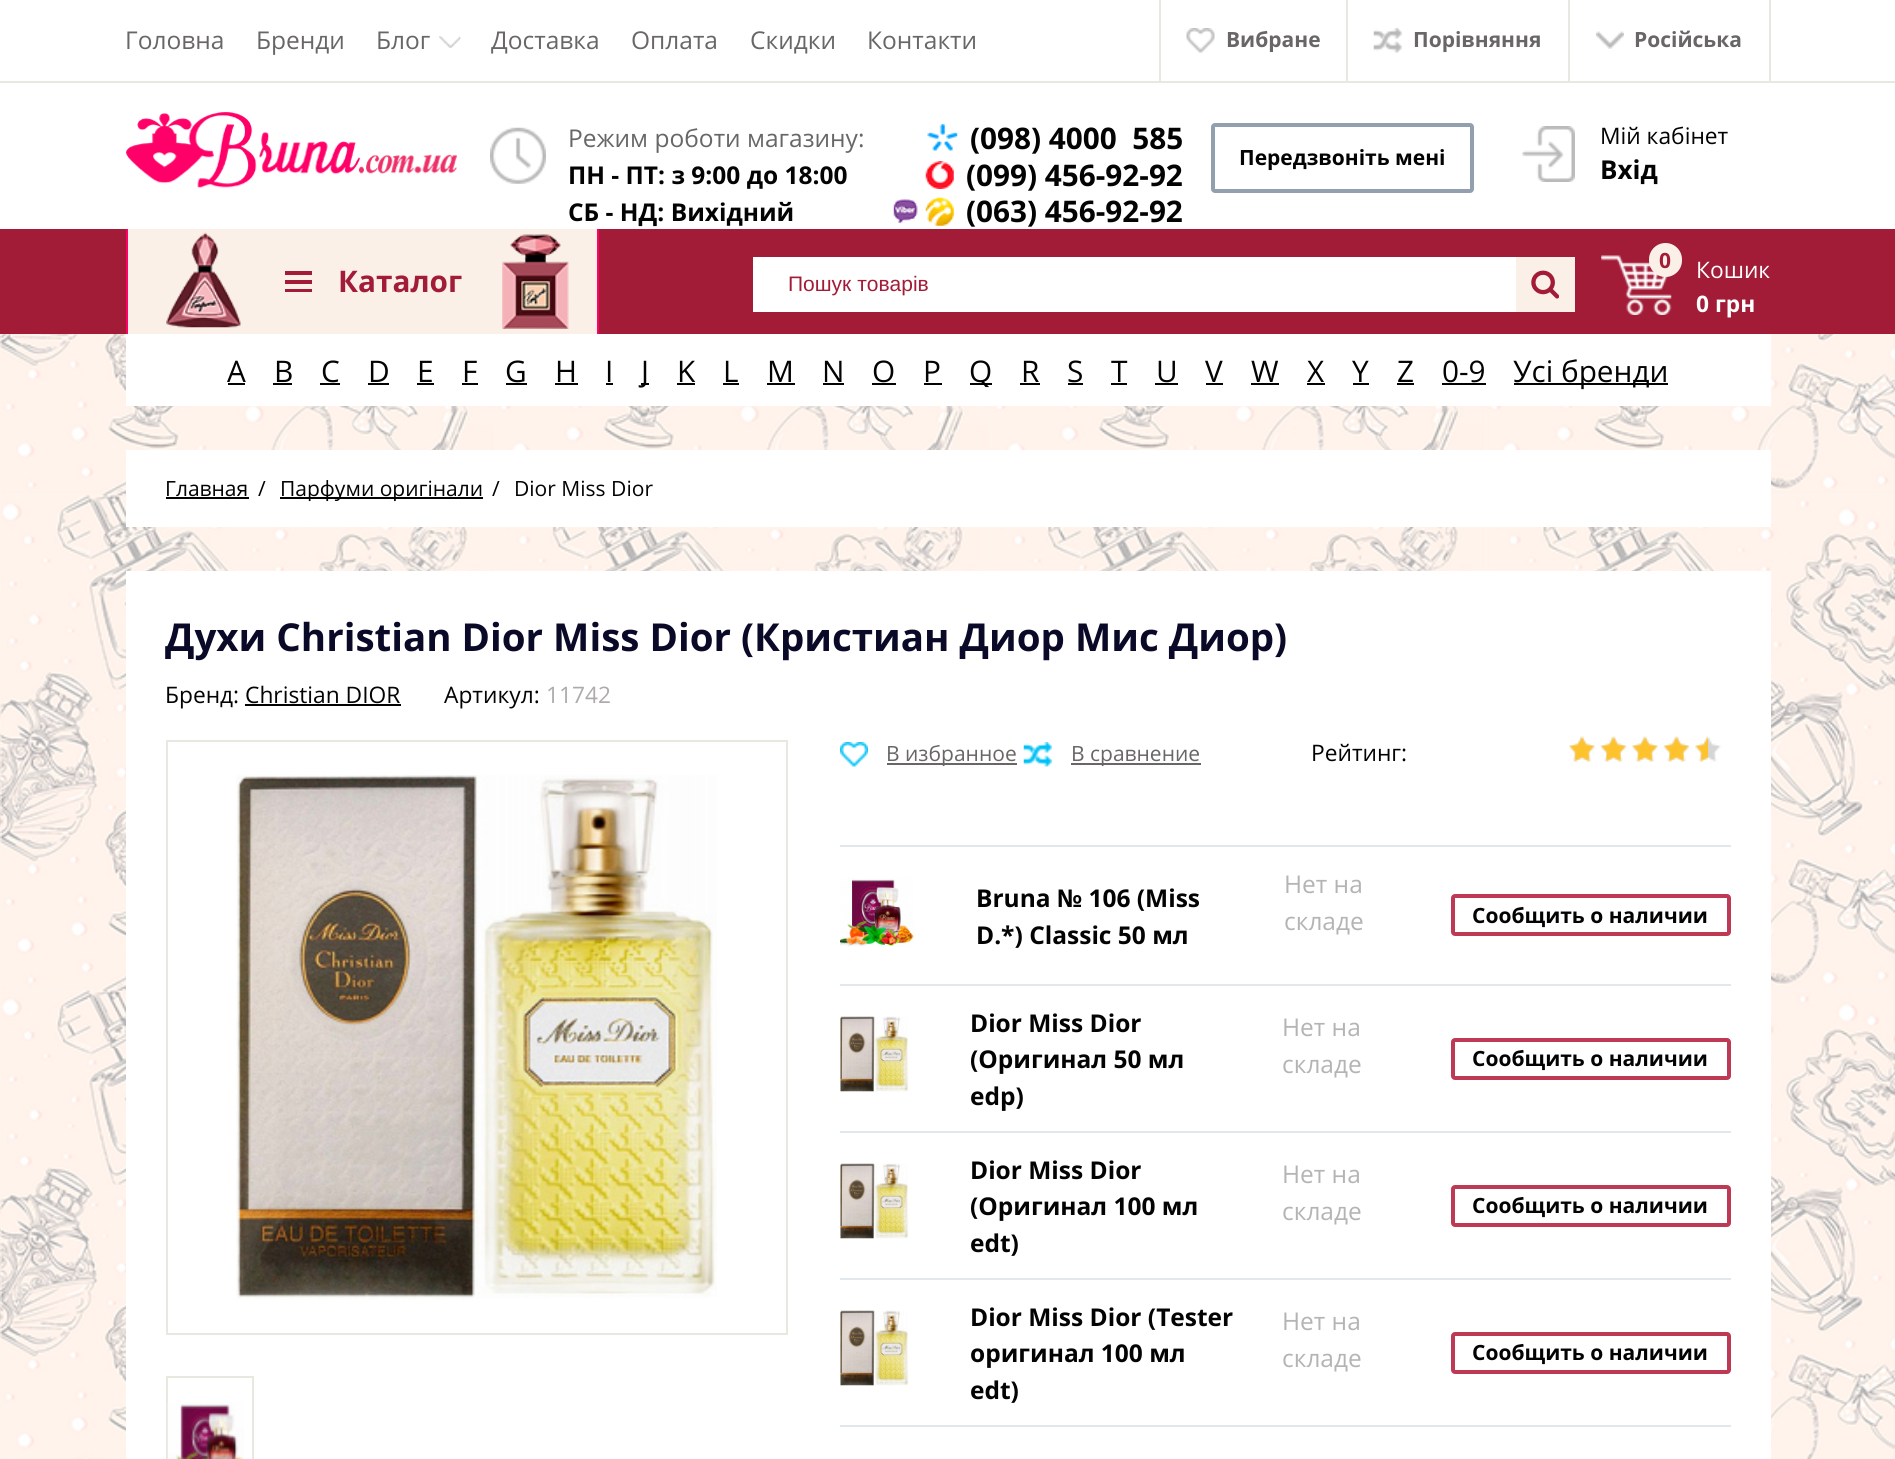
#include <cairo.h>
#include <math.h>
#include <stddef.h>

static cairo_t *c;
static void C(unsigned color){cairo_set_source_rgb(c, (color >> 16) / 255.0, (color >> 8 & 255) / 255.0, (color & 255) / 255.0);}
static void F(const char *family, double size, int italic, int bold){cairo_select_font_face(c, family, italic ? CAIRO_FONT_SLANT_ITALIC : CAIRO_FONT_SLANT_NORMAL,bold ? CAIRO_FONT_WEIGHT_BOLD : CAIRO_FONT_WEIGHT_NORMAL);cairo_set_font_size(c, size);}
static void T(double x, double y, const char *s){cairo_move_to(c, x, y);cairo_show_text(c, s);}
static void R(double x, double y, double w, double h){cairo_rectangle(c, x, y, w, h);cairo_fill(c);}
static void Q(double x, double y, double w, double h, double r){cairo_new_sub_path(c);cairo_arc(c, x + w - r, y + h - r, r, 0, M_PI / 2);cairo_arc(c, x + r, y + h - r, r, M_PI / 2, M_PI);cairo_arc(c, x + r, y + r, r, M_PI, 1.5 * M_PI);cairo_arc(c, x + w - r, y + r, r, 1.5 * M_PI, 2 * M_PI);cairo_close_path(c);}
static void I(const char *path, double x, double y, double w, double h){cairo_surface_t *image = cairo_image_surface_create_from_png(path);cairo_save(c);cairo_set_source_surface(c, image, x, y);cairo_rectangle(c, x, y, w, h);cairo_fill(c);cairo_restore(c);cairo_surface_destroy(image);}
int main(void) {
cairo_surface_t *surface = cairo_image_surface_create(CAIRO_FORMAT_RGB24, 1895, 1459);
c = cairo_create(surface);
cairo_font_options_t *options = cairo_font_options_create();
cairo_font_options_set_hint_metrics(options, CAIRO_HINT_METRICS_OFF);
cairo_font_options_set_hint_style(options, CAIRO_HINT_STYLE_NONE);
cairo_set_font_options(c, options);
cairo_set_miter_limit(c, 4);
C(0xffffff);
cairo_paint(c);
I("1.png",0,334,1895,1125);
C(0xe8e8e1);
R(0,81,1895,2);
F("Open Sans",24.5,0,0);
C(0x686666);
T(125,49,"Головна");
T(256,49,"Бренди");
T(376,49,"Блог");
I("2.png",439,36,22,12);
T(491,49,"Доставка");
T(631,49,"Оплата");
T(750,49,"Скидки");
T(867,49,"Контакти");
C(0xe8e8e1);
R(1769,0,2,81);
R(1159,0,2,81);
I("3.png",1186,28,29,25);
F("Open Sans",21,0,1);
C(0x686666);
T(1226,47,"Вибране");
C(0xe8e8e1);
R(1346,0,2,81);
I("4.png",1373,28,29,25);
C(0x686666);
T(1413,47,"Порівняння");
C(0xe8e8e1);
R(1568,0,2,81);
I("5.png",1596,31,28,18);
C(0x686666);
T(1634,47,"Російська");
I("6.png",126,112,331,76);
I("7.png",490,127,56,57);
F("Open Sans",24.5,0,0);
T(568,147,"Режим роботи магазину:");
F("Open Sans",24.5,0,1);
C(0x030303);
T(568,184,"ПН - ПТ: з 9:00 до 18:00");
T(568,221,"СБ - НД: Вихідний");
I("8.png",927,124,31,27);
F("Open Sans",29.75,0,1);
T(970,149,"(098) 4000  585");
I("9.png",925,161,29,28);
T(966,186,"(099) 456-92-92");
I("10.png",893,198,25,26);
I("11.png",925,197,29,29);
T(966,222,"(063) 456-92-92");
Q(1213,125,259,66,2);
C(0x929faf);
cairo_set_line_width(c,4);
cairo_stroke(c);
F("Open Sans",21,0,1);
C(0x030303);
T(1239,165,"Передзвоніть мені");
I("12.png",1522,126,53,56);
F("Open Sans",22.75,0,0);
T(1600,144,"Мій кабінет");
F("Open Sans",26,0,1);
T(1600,179,"Вхід");
C(0xa21c37);
R(0,229,1895,105);
C(0xfaf0e8);
R(128,229,469,105);
I("13.png",166,232,403,97);
C(0xff0066);
R(597,229,2,105);
R(126,229,2,105);
C(0xa21c37);
R(285,289,27,3);
R(285,280,27,4);
R(285,271,27,4);
F("Open Sans",29.75,0,1);
T(338,292,"Каталог");
C(0xffffff);
R(753,257,763,55);
F("Liberation Sans",21,0,0);
C(0xa21c37);
T(788,291,"Пошук товарів");
C(0xfaf0e8);
R(1516,257,59,55);
I("14.png",1531,270,28,29);
I("15.png",1601,255,71,60);
Q(1649,243,33,34,16.5);
cairo_fill(c);
F("Open Sans",21,0,1);
C(0xa21c37);
T(1659,268,"0");
F("Open Sans",22.75,0,0);
C(0xffffff);
T(1696,278,"Кошик");
F("Open Sans",22.75,0,1);
T(1696,312,"0 грн");
R(126,334,1645,72);
F("Open Sans",29.75,0,0);
C(0x030303);
T(227,382,"A");
R(228,383,17,2);
T(274,382,"B");
R(273,383,19,2);
T(321,382,"C");
R(320,383,20,2);
T(368,382,"D");
R(368,383,21,2);
T(417,382,"E");
R(417,383,17,2);
T(462,382,"F");
R(462,383,16,2);
T(505,382,"G");
R(506,383,21,2);
T(555,382,"H");
R(555,383,23,2);
T(605,382,"I");
R(606,383,7,2);
R(641,383,8,2);
T(641,382,"J");
T(677,382,"K");
R(677,383,18,2);
T(723,382,"L");
R(723,383,16,2);
T(767,382,"M");
R(767,383,28,2);
T(822,382,"N");
R(823,383,21,2);
T(872,382,"O");
R(872,383,24,2);
T(923,382,"P");
R(924,383,18,2);
R(970,383,22,2);
T(969,382,"Q");
T(1021,382,"R");
R(1020,383,20,2);
T(1067,382,"S");
R(1068,383,15,2);
T(1111,382,"T");
R(1111,383,16,2);
T(1156,382,"U");
R(1155,383,23,2);
T(1205,382,"V");
R(1206,383,17,2);
T(1251,382,"W");
R(1251,383,28,2);
T(1307,382,"X");
R(1307,383,18,2);
T(1352,382,"Y");
R(1353,383,16,2);
T(1397,382,"Z");
R(1397,383,17,2);
T(1442,382,"0-9");
R(1442,383,44,2);
R(1514,383,154,2);
T(1513,382,"Усі бренди");
C(0xffffff);
R(126,450,1645,77);
F("Open Sans",21,0,0);
C(0x030303);
T(165,496,"Главная");
R(166,497,83,2);
T(258,496,"/");
R(280,497,203,2);
T(280,496,"Парфуми оригінали");
T(492,496,"/");
T(514,496,"Dior Miss Dior");
C(0xffffff);
R(126,571,1645,888);
F("Open Sans",38.5,0,1);
C(0x0a0a28);
T(165,651,"Духи Christian Dior Miss Dior (Кристиан Диор Мис Диор)");
F("Open Sans",22.75,0,0);
C(0x030303);
T(165,703,"Бренд: Christian DIOR");
R(245,704,156,2);
T(444,703,"Артикул:");
C(0xadaaaa);
T(546,703,"11742");
cairo_rectangle(c,167,741,620,593);
C(0xe8e8e1);
cairo_set_line_width(c,2);
cairo_stroke(c);
I("16.png",236,775,481,525);
cairo_rectangle(c,167,1377,86,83);
cairo_stroke(c);
I("17.png",167,1402,77,57);
I("18.png",840,742,28,25);
C(0x686666);
R(887,763,130,2);
F("Open Sans",21,0,0);
T(886,761,"В избранное");
I("19.png",1023,742,29,25);
R(1071,763,130,2);
T(1071,761,"В сравнение");
F("Open Sans",22.75,0,0);
C(0x030303);
T(1311,761,"Рейтинг:");
I("20.png",1569,736,152,26);
I("21.png",1569,736,139,26);
C(0xe1e8ed);
R(840,1425,891,2);
R(840,845,891,2);
I("22.png",840,877,74,70);
F("Open Sans",24.5,0,1);
C(0x030303);
T(976,907,"Bruna № 106 (Miss");
T(976,944,"D.*) Classic 50 мл");
F("Open Sans",24.5,0,0);
C(0xb4b4b4);
T(1284,893,"Нет на");
T(1284,930,"складе");
Q(1453,896,276,38,2);
C(0xbe3a54);
cairo_set_line_width(c,4);
cairo_stroke(c);
F("Open Sans",21,0,1);
C(0x030303);
T(1472,923,"Сообщить о наличии");
C(0xe1e8ed);
R(840,984,891,2);
I("23.png",840,1016,69,76);
F("Open Sans",24.5,0,1);
C(0x030303);
T(970,1032,"Dior Miss Dior");
T(970,1068,"(Оригинал 50 мл");
T(970,1105,"edp)");
F("Open Sans",24.5,0,0);
C(0xb4b4b4);
T(1282,1036,"Нет на");
T(1282,1073,"складе");
Q(1453,1040,276,38,2);
C(0xbe3a54);
cairo_stroke(c);
F("Open Sans",21,0,1);
C(0x030303);
T(1472,1066,"Сообщить о наличии");
C(0xe1e8ed);
R(840,1131,891,2);
I("23.png",840,1163,69,76);
F("Open Sans",24.5,0,1);
C(0x030303);
T(970,1179,"Dior Miss Dior");
T(970,1215,"(Оригинал 100 мл");
T(970,1252,"edt)");
F("Open Sans",24.5,0,0);
C(0xb4b4b4);
T(1282,1183,"Нет на");
T(1282,1220,"складе");
Q(1453,1187,276,38,2);
C(0xbe3a54);
cairo_stroke(c);
F("Open Sans",21,0,1);
C(0x030303);
T(1472,1213,"Сообщить о наличии");
C(0xe1e8ed);
R(840,1278,891,2);
I("23.png",840,1310,69,76);
F("Open Sans",24.5,0,1);
C(0x030303);
T(970,1326,"Dior Miss Dior (Tester");
T(970,1362,"оригинал 100 мл");
T(970,1399,"edt)");
F("Open Sans",24.5,0,0);
C(0xb4b4b4);
T(1282,1330,"Нет на");
T(1282,1367,"складе");
Q(1453,1334,276,38,2);
C(0xbe3a54);
cairo_stroke(c);
F("Open Sans",21,0,1);
C(0x030303);
T(1472,1360,"Сообщить о наличии");
cairo_surface_write_to_png(surface, "o.png");
cairo_font_options_destroy(options);
cairo_destroy(c);
cairo_surface_destroy(surface);
return 0;
}
